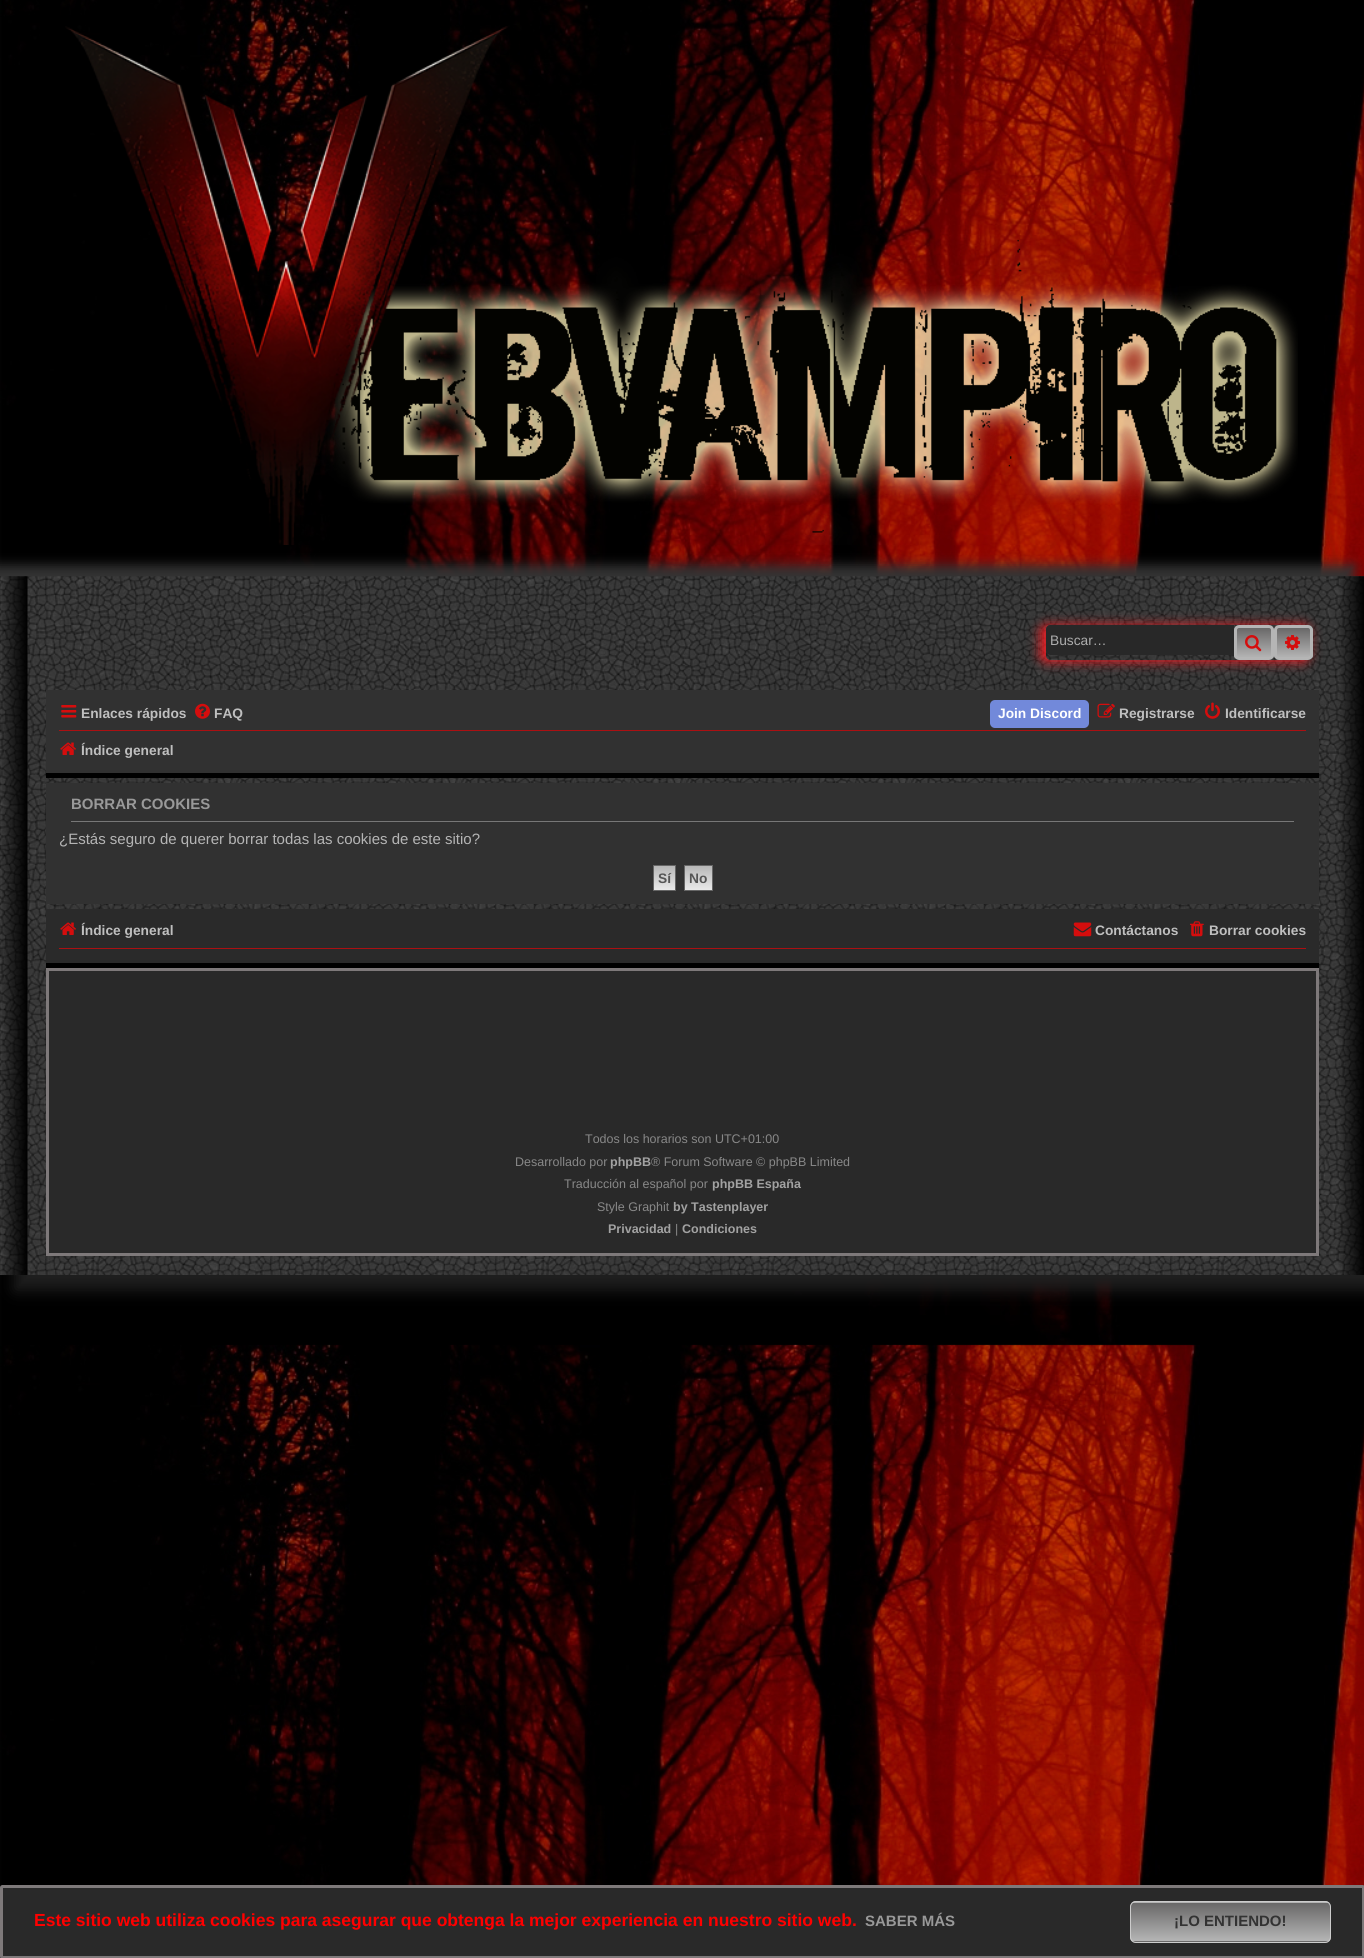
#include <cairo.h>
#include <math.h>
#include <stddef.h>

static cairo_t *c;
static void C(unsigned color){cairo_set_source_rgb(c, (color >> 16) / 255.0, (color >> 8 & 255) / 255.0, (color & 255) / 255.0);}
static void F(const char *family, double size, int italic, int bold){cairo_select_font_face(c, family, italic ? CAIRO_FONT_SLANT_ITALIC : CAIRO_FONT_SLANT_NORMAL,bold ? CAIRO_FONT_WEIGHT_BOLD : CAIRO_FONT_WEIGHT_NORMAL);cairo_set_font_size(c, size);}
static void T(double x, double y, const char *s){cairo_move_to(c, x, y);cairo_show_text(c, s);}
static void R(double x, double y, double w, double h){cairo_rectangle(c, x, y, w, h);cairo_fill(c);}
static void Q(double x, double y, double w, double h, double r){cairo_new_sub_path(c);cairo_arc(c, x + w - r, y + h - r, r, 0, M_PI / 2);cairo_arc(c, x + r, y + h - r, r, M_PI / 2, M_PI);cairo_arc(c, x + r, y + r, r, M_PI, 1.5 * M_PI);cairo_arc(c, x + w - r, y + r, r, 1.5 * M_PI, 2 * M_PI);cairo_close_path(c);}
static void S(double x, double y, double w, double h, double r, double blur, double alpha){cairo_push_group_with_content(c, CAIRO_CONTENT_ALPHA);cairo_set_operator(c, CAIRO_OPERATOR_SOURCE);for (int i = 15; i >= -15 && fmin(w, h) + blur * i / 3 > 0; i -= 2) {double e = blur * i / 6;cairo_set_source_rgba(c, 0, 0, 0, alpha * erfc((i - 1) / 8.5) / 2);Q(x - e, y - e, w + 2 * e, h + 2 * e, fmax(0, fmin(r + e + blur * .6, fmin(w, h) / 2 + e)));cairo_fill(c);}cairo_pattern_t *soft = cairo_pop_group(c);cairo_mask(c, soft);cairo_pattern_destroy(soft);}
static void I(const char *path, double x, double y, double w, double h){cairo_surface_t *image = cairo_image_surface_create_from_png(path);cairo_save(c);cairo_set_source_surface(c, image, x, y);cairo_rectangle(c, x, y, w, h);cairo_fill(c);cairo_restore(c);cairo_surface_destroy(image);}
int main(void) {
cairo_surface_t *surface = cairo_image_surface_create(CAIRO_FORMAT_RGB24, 1364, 1958);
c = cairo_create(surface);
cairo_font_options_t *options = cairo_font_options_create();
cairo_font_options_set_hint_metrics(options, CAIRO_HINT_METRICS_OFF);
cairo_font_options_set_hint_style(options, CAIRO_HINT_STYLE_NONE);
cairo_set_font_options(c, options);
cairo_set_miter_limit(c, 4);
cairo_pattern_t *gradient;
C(0xffffff);
cairo_paint(c);
I("1.png",0,1303,1364,655);
I("2.png",0,0,1364,1303);
I("3.png",65,26,1233,519);
C(0x1f1f1f);
S(15,591,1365,699,0,7.5,1);
C(0x333333);
S(-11,565,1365,699,0,5.5,1);
I("4.png",0,576,1364,699);
I("5.png",2,576,1362,699);
cairo_save(c);
cairo_set_fill_rule(c,CAIRO_FILL_RULE_EVEN_ODD);
cairo_new_path(c);
cairo_move_to(c,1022,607);
cairo_line_to(c,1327,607);
cairo_line_to(c,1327,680);
cairo_line_to(c,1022,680);
cairo_close_path(c);
cairo_move_to(c,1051,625);
cairo_line_to(c,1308,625);
cairo_curve_to(c,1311,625,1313,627,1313,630);
cairo_line_to(c,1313,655);
cairo_curve_to(c,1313,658,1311,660,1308,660);
cairo_line_to(c,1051,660);
cairo_curve_to(c,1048,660,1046,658,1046,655);
cairo_line_to(c,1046,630);
cairo_curve_to(c,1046,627,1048,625,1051,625);
cairo_close_path(c);
cairo_clip(c);
C(0xff1c23);
S(1041,626,267,35,5,6,1);
cairo_restore(c);
C(0x282828);
cairo_new_path(c);
cairo_move_to(c,1051,625);
cairo_line_to(c,1234,625);
cairo_line_to(c,1234,655);
cairo_line_to(c,1051,655);
cairo_curve_to(c,1048,655,1046,653,1046,650);
cairo_line_to(c,1046,630);
cairo_curve_to(c,1046,627,1048,625,1051,625);
cairo_close_path(c);
cairo_fill(c);
F("Liberation Sans",13.75,0,0);
C(0xadadad);
T(1050,645,"Buscar…");
cairo_save(c);
Q(1234,625,40,35,5);
cairo_clip(c);
gradient = cairo_pattern_create_linear(1254,628,1254,658);
cairo_pattern_add_color_stop_rgba(gradient,0,0.412,0.408,0.408,1);
cairo_pattern_add_color_stop_rgba(gradient,1,0.71,0.71,0.71,1);
cairo_set_source(c,gradient);
cairo_pattern_destroy(gradient);
R(1234,628,40,30);
cairo_restore(c);
Q(1235.5,626.5,37,32,3.5);
C(0xb5b5b5);
cairo_set_line_width(c,3);
cairo_stroke(c);
I("6.png",1245,635,17,17);
cairo_save(c);
Q(1274,625,39,35,5);
cairo_clip(c);
gradient = cairo_pattern_create_linear(1293,628,1293,658);
cairo_pattern_add_color_stop_rgba(gradient,0,0.412,0.408,0.408,1);
cairo_pattern_add_color_stop_rgba(gradient,1,0.71,0.71,0.71,1);
cairo_set_source(c,gradient);
cairo_pattern_destroy(gradient);
R(1274,628,39,30);
cairo_restore(c);
Q(1275.5,626.5,36,32,3.5);
cairo_stroke(c);
I("7.png",1285,635,15,15);
C(0x313131);
R(46,690,1273,83);
C(0x000000);
R(46,773,1273,5);
I("8.png",61,705,16,13);
F("Liberation Sans",13.75,0,1);
C(0xbfbfbf);
T(81,718,"Enlaces rápidos");
I("9.png",195,703,15,16);
T(214,718,"FAQ");
C(0x7289da);
Q(990,700,99,28,5);
cairo_fill(c);
C(0xffffff);
T(998,718,"Join Discord");
I("10.png",1097,703,18,15);
C(0xbfbfbf);
T(1119,718,"Registrarse");
I("11.png",1205,702,15,17);
T(1225,718,"Identificarse");
C(0xab1012);
R(59,730,1247,1);
I("12.png",60,742,16,13);
C(0xbfbfbf);
T(81,755,"Índice general");
C(0x313131);
R(46,783,1273,121);
C(0x777777);
R(71,821,1223,1);
F("Liberation Sans",15,0,1);
C(0x999999);
T(71,809,"BORRAR COOKIES");
F("Liberation Sans",15,0,0);
C(0xb5b5b5);
T(59,844,"¿Estás seguro de querer borrar todas las cookies de este sitio?");
gradient = cairo_pattern_create_linear(664,866,664,890);
cairo_pattern_add_color_stop_rgba(gradient,0,0.718,0.718,0.718,1);
cairo_pattern_add_color_stop_rgba(gradient,1,0.914,0.914,0.914,1);
cairo_set_source(c,gradient);
cairo_pattern_destroy(gradient);
R(654,866,21,24);
cairo_rectangle(c,653.5,865.5,22,25);
C(0x666666);
cairo_set_line_width(c,1);
cairo_stroke(c);
F("Liberation Sans",13.75,0,1);
C(0x555555);
T(658,883,"Sí");
gradient = cairo_pattern_create_linear(698,866,698,890);
cairo_pattern_add_color_stop_rgba(gradient,0,0.718,0.718,0.718,1);
cairo_pattern_add_color_stop_rgba(gradient,1,0.914,0.914,0.914,1);
cairo_set_source(c,gradient);
cairo_pattern_destroy(gradient);
R(685,866,27,24);
cairo_rectangle(c,684.5,865.5,28,25);
C(0x666666);
cairo_stroke(c);
C(0x555555);
T(689,883,"No");
C(0x2a2a2a);
R(46,909,1273,54);
C(0x000000);
R(46,963,1273,5);
I("13.png",60,922,16,13);
C(0xbfbfbf);
T(81,935,"Índice general");
I("14.png",1073,922,19,15);
T(1095,935,"Contáctanos");
I("15.png",1190,921,14,16);
T(1209,935,"Borrar cookies");
C(0xab1012);
R(59,948,1247,1);
C(0x292929);
cairo_rectangle(c,47.5,969.5,1270,285);
cairo_fill_preserve(c);
C(0x7e797a);
cairo_set_line_width(c,3);
cairo_stroke(c);
F("Liberation Sans",12.5,0,0);
C(0x888888);
T(585,1143,"Todos los horarios son UTC+01:00");
T(515,1166,"Desarrollado por");
F("Liberation Sans",12.5,0,1);
C(0xa2a2a2);
T(610,1166,"phpBB");
F("Liberation Sans",12.5,0,0);
C(0x888888);
T(651,1166,"® Forum Software © phpBB Limited");
T(564,1188,"Traducción al español por");
F("Liberation Sans",12.5,0,1);
C(0xa2a2a2);
T(712,1188,"phpBB España");
F("Liberation Sans",12.5,0,0);
C(0x888888);
T(597,1211,"Style Graphit");
F("Liberation Sans",12.5,0,1);
C(0xa2a2a2);
T(673,1211,"by Tastenplayer");
T(608,1233,"Privacidad");
F("Liberation Sans",12.5,0,0);
C(0x888888);
T(675,1233,"|");
F("Liberation Sans",12.5,0,1);
C(0xa2a2a2);
T(682,1233,"Condiciones");
C(0x292929);
Q(1.5,1886.5,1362,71,1);
cairo_fill_preserve(c);
C(0x7e797a);
cairo_stroke(c);
F("Liberation Sans",17.5,0,1);
C(0xff0000);
T(34,1926,"Este sitio web utiliza cookies para asegurar que obtenga la mejor experiencia en nuestro sitio web.");
F("Liberation Sans",15,0,1);
C(0x999999);
T(865,1926,"SABER MÁS");
cairo_save(c);
Q(1130,1901,201,42,6);
cairo_clip(c);
gradient = cairo_pattern_create_linear(1231,1864,1231,1903);
cairo_pattern_add_color_stop_rgba(gradient,0,0.412,0.408,0.408,1);
cairo_pattern_add_color_stop_rgba(gradient,1,0.71,0.71,0.71,1);
cairo_set_source(c,gradient);
cairo_pattern_destroy(gradient);
R(1130,1901,201,2);
gradient = cairo_pattern_create_linear(1231,1903,1231,1941);
cairo_pattern_add_color_stop_rgba(gradient,0,0.412,0.408,0.408,1);
cairo_pattern_add_color_stop_rgba(gradient,1,0.71,0.71,0.71,1);
cairo_set_source(c,gradient);
cairo_pattern_destroy(gradient);
R(1130,1903,201,38);
gradient = cairo_pattern_create_linear(1231,1941,1231,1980);
cairo_pattern_add_color_stop_rgba(gradient,0,0.412,0.408,0.408,1);
cairo_pattern_add_color_stop_rgba(gradient,1,0.71,0.71,0.71,1);
cairo_set_source(c,gradient);
cairo_pattern_destroy(gradient);
R(1130,1941,201,2);
cairo_restore(c);
Q(1130.5,1901.5,200,41,5.5);
C(0xcccccc);
cairo_set_line_width(c,1);
cairo_stroke(c);
C(0x333333);
T(1174,1926,"¡LO ENTIENDO!");
cairo_surface_write_to_png(surface, "o.png");
cairo_font_options_destroy(options);
cairo_destroy(c);
cairo_surface_destroy(surface);
return 0;
}
